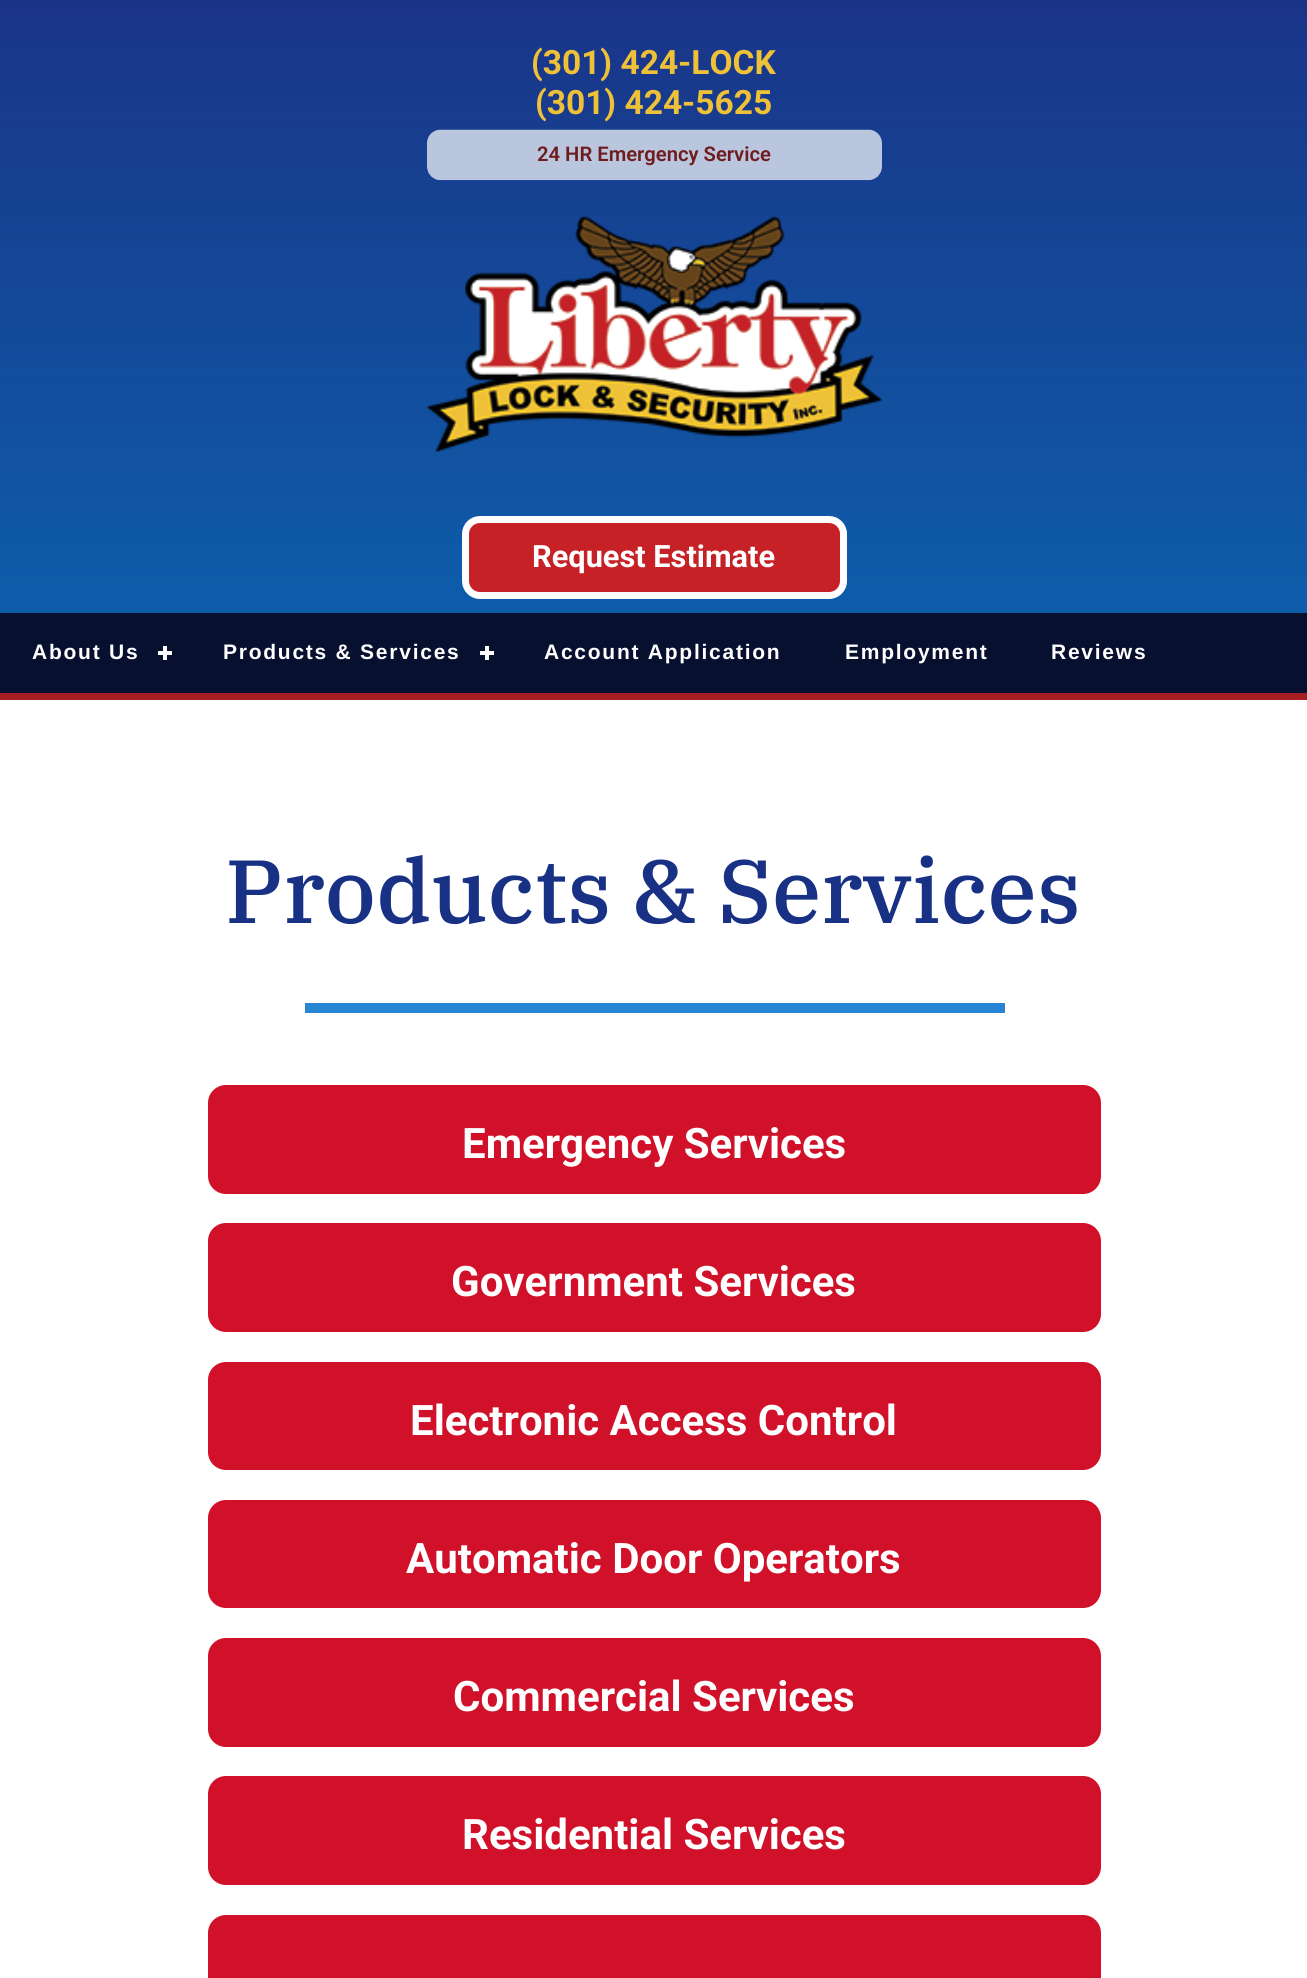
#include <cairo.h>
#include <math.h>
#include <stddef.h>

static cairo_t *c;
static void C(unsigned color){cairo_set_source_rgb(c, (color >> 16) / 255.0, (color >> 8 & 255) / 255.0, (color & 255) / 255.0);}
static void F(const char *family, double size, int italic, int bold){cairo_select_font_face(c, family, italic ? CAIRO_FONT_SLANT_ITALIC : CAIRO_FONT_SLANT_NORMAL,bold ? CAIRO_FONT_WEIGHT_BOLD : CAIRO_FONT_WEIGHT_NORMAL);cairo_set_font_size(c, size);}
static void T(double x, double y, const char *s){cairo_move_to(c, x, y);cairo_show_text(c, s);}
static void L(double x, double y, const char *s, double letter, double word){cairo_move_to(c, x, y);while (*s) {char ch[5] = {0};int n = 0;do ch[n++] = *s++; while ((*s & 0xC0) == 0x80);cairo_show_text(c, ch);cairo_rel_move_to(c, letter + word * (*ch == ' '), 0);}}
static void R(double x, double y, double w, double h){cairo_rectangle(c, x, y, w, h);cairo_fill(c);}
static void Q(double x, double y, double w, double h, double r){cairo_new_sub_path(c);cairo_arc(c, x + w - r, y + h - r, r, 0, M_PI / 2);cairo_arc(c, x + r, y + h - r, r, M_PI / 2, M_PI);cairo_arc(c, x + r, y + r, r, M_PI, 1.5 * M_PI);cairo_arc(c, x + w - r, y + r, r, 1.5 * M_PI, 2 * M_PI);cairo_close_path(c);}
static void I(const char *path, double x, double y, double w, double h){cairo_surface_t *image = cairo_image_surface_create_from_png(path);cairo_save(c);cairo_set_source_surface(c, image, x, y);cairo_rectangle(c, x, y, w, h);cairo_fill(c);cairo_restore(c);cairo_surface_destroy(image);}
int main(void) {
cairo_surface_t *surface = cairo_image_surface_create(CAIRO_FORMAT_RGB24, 1307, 1978);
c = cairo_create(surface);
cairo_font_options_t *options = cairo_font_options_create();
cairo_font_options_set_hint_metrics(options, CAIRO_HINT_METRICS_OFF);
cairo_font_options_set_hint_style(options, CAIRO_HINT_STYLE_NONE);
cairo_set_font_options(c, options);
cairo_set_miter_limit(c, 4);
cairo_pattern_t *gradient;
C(0xffffff);
cairo_paint(c);
gradient = cairo_pattern_create_linear(654,0,654,700);
cairo_pattern_add_color_stop_rgba(gradient,0,0.102,0.204,0.533,1);
cairo_pattern_add_color_stop_rgba(gradient,1,0.047,0.388,0.686,1);
cairo_set_source(c,gradient);
cairo_pattern_destroy(gradient);
R(0,0,1307,613);
F("Roboto",33.5,0,1);
C(0xeec139);
T(531,74,"(301) 424-LOCK");
T(535,114,"(301) 424-5625");
I("1.png",427,129,455,52);
F("Roboto SemiBold",20.2,0,0);
C(0x6f1c1f);
T(537,161,"24 HR Emergency Service");
I("2.png",426,216,457,236);
C(0xc62127);
Q(465.5,519.5,378,76,14.5);
cairo_fill_preserve(c);
C(0xffffff);
cairo_set_line_width(c,7);
cairo_stroke(c);
F("Roboto",30.75,0,1);
T(532,567,"Request Estimate");
C(0x07102f);
R(0,613,1307,80);
C(0xa61e22);
R(0,693,1307,7);
F("Liberation Sans",21,0,1);
C(0xffffff);
L(32,659,"About Us",1.75,0);
R(163,646,4,14);
R(158,651,14,4);
L(223,659,"Products & Services",1.75,0);
R(485,646,4,14);
R(480,651,14,4);
L(544,659,"Account Application",1.75,0);
L(845,659,"Employment",1.75,0);
L(1051,659,"Reviews",1.75,0);
F("IBM Plex Serif Medium",89.5,0,0);
C(0x183185);
T(225,923,"Products & Services");
C(0x2885d3);
R(305,1003,700,10);
C(0xd11129);
Q(208,1085,893,109,18);
cairo_fill(c);
F("Roboto",42,0,1);
C(0xffffff);
T(462,1158,"Emergency Services");
C(0xd11129);
Q(208,1223,893,109,18);
cairo_fill(c);
C(0xffffff);
T(451,1296,"Government Services");
C(0xd11129);
Q(208,1362,893,108,18);
cairo_fill(c);
C(0xffffff);
T(410,1435,"Electronic Access Control");
C(0xd11129);
Q(208,1500,893,108,18);
cairo_fill(c);
C(0xffffff);
T(406,1573,"Automatic Door Operators");
C(0xd11129);
Q(208,1638,893,109,18);
cairo_fill(c);
C(0xffffff);
T(453,1711,"Commercial Services");
C(0xd11129);
Q(208,1776,893,109,18);
cairo_fill(c);
C(0xffffff);
T(462,1849,"Residential Services");
C(0xd11129);
Q(208,1915,893,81,18);
cairo_fill(c);
cairo_surface_write_to_png(surface, "o.png");
cairo_font_options_destroy(options);
cairo_destroy(c);
cairo_surface_destroy(surface);
return 0;
}
